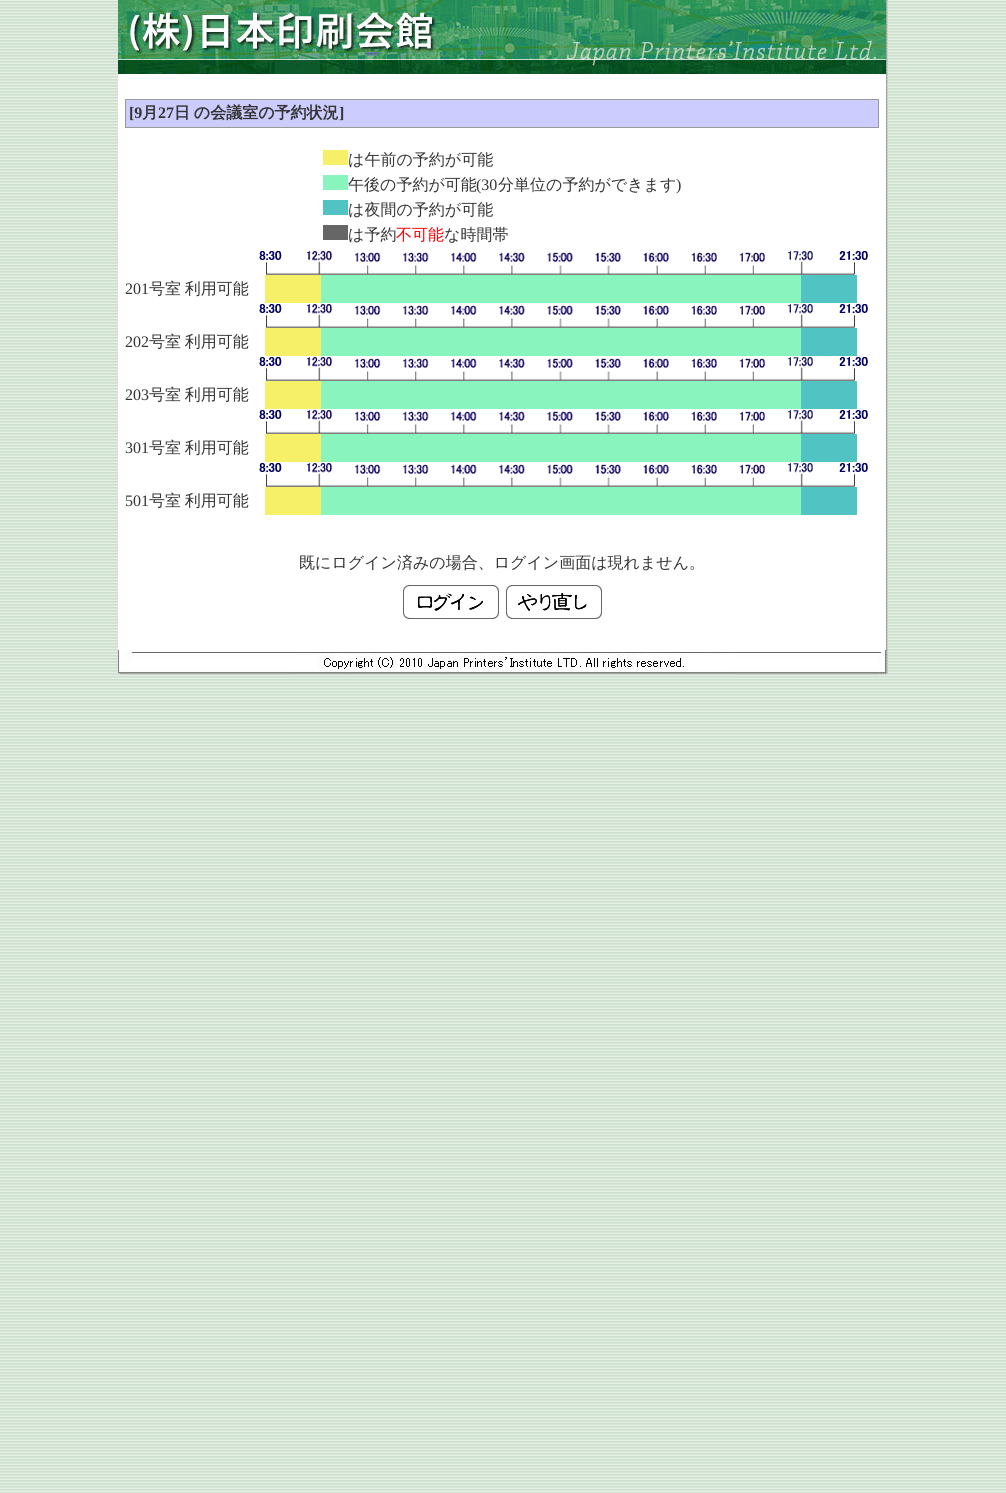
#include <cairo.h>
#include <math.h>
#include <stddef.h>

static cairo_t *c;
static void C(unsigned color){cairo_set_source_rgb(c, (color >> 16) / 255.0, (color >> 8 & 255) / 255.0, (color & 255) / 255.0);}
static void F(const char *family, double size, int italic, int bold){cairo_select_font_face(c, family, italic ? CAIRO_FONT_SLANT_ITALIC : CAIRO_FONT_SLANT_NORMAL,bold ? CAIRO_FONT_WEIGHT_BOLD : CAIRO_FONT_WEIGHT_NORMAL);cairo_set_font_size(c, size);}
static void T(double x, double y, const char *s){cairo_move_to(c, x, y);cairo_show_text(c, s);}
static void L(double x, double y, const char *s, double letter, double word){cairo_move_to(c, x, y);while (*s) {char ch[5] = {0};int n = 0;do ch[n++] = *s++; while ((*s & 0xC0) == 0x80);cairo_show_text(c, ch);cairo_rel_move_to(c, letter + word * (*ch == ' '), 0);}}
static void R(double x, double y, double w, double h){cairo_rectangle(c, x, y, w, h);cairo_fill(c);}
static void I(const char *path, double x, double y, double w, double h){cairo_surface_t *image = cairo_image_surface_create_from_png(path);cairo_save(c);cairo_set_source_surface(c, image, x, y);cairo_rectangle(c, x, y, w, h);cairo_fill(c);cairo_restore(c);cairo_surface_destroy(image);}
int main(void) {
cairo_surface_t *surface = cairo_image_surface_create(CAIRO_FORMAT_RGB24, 1006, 1493);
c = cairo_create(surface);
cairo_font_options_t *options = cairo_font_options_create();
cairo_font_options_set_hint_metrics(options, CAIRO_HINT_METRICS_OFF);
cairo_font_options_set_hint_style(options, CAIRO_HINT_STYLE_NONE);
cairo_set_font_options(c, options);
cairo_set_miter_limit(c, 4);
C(0xffffff);
cairo_paint(c);
I("1.png",0,0,1006,1493);
I("2.png",118,0,768,74);
I("3.png",886,0,2,74);
C(0xffffff);
R(118,74,768,576);
I("4.png",886,74,2,18);
I("5.png",886,82,2,3);
C(0x999999);
R(125,99,754,29);
C(0xccccff);
R(126,100,752,27);
F("Liberation Serif",16,0,1);
C(0x333333);
T(129,118,"[9");
F("WenQuanYi Zen Hei",16,0,1);
T(142,118,"月");
F("Liberation Serif",16,0,1);
T(158,118,"27");
F("WenQuanYi Zen Hei",16,0,1);
L(174,118,"日 の会議室の予約状況",0,-1);
F("Liberation Serif",16,0,1);
T(339,118,"]");
C(0xf5f068);
R(323,150,25,15);
F("WenQuanYi Zen Hei Medium",16,0,0);
C(0x333333);
T(348,165,"は午前の予約が可能");
C(0x8af4bf);
R(323,175,25,15);
C(0x333333);
T(348,190,"午後の予約が可能");
F("Liberation Serif",16,0,0);
T(476,190,"(30");
F("WenQuanYi Zen Hei Medium",16,0,0);
T(498,190,"分単位の予約ができます");
F("Liberation Serif",16,0,0);
T(676,190,")");
C(0x51c3c2);
R(323,200,25,15);
F("WenQuanYi Zen Hei Medium",16,0,0);
C(0x333333);
T(348,215,"は夜間の予約が可能");
C(0x666666);
R(323,225,25,15);
C(0x333333);
T(348,240,"は予約");
C(0xff0000);
T(396,240,"不可能");
C(0x333333);
T(444,240,"な時間帯");
I("6.png",259,251,609,24);
F("Liberation Serif",16,0,0);
T(125,294,"201");
F("WenQuanYi Zen Hei Medium",16,0,0);
L(149,294,"号室 利用可能",0,-1);
C(0xf5f068);
R(265,275,56,28);
C(0x8af4bf);
R(321,275,480,28);
C(0x51c3c2);
R(801,275,56,28);
I("6.png",259,304,609,24);
F("Liberation Serif",16,0,0);
C(0x333333);
T(125,347,"202");
F("WenQuanYi Zen Hei Medium",16,0,0);
L(149,347,"号室 利用可能",0,-1);
C(0xf5f068);
R(265,328,56,28);
C(0x8af4bf);
R(321,328,480,28);
C(0x51c3c2);
R(801,328,56,28);
I("6.png",259,357,609,24);
F("Liberation Serif",16,0,0);
C(0x333333);
T(125,400,"203");
F("WenQuanYi Zen Hei Medium",16,0,0);
L(149,400,"号室 利用可能",0,-1);
C(0xf5f068);
R(265,381,56,28);
C(0x8af4bf);
R(321,381,480,28);
C(0x51c3c2);
R(801,381,56,28);
I("6.png",259,410,609,24);
F("Liberation Serif",16,0,0);
C(0x333333);
T(125,453,"301");
F("WenQuanYi Zen Hei Medium",16,0,0);
L(149,453,"号室 利用可能",0,-1);
C(0xf5f068);
R(265,434,56,28);
C(0x8af4bf);
R(321,434,480,28);
C(0x51c3c2);
R(801,434,56,28);
I("6.png",259,463,609,24);
F("Liberation Serif",16,0,0);
C(0x333333);
T(125,506,"501");
F("WenQuanYi Zen Hei Medium",16,0,0);
L(149,506,"号室 利用可能",0,-1);
C(0xf5f068);
R(265,487,56,28);
C(0x8af4bf);
R(321,487,480,28);
C(0x51c3c2);
R(801,487,56,28);
C(0x333333);
T(299,568,"既にログイン済みの場合、ログイン画面は現れません。");
I("7.png",403,585,96,34);
I("8.png",506,585,96,34);
I("9.png",886,92,2,557);
I("5.png",886,369,2,3);
I("10.png",118,650,768,2);
I("5.png",886,649,2,3);
I("11.png",118,652,770,23);
cairo_surface_write_to_png(surface, "o.png");
cairo_font_options_destroy(options);
cairo_destroy(c);
cairo_surface_destroy(surface);
return 0;
}
